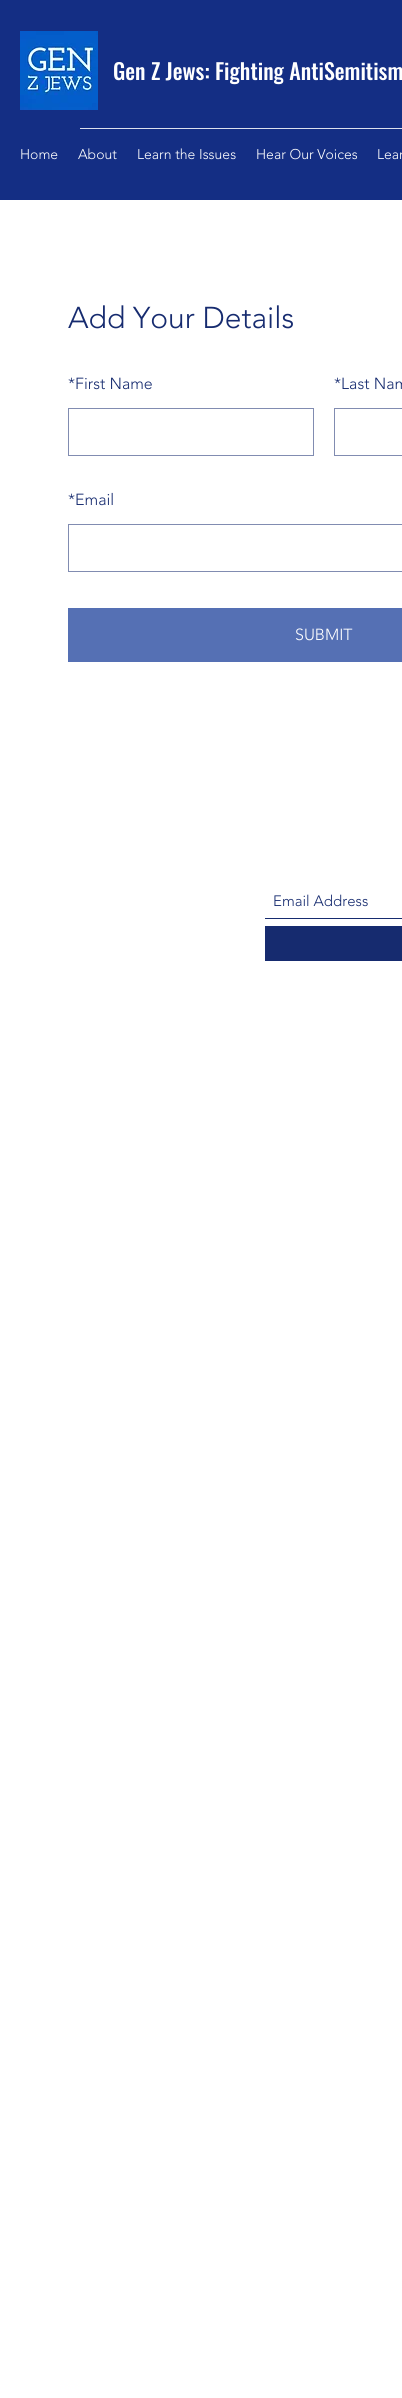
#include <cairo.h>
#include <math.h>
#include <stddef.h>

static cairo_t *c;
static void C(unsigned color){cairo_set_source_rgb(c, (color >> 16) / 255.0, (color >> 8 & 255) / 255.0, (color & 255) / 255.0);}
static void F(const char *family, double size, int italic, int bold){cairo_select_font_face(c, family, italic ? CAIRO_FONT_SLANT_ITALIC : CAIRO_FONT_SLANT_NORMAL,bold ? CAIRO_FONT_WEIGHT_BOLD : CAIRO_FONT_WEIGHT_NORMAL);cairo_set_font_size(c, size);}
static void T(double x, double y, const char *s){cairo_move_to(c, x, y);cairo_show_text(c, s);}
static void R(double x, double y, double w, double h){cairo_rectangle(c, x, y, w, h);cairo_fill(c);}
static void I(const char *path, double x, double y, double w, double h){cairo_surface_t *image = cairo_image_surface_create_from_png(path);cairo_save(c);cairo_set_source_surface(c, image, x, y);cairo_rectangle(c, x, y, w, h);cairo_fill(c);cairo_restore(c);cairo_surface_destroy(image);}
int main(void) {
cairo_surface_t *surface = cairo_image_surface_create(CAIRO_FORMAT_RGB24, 402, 2398);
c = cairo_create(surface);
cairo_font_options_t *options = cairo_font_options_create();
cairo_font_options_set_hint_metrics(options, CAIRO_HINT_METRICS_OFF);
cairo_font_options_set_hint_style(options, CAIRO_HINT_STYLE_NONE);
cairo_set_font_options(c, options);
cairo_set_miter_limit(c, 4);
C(0xffffff);
cairo_paint(c);
C(0x142e84);
R(0,0,402,200);
I("1.png",20,31,78,79);
F("Oswald Medium",22,0,0);
C(0xffffff);
T(113,80,"Gen Z Jews: Fighting AntiSemitism");
C(0xdce0ed);
R(80,128,322,1);
F("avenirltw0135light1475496 Light",14,0,0);
C(0xffffff);
T(20,159,"Home");
T(78,159,"About");
T(137,159,"Learn the Issues");
T(256,159,"Hear Our Voices");
T(377,159,"Lear");
F("avenirltw0135light1475496 Light",30,0,0);
C(0x162b6f);
T(68,328,"Add Your Details");
F("avenirltw0135light1475496 Light",16,0,0);
T(68,389,"*First Name");
cairo_rectangle(c,68.5,408.5,245,47);
C(0x818cb1);
cairo_set_line_width(c,1);
cairo_stroke(c);
C(0x162b6f);
T(334,389,"*Last Nam");
cairo_rectangle(c,334.5,408.5,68,47);
C(0x818cb1);
cairo_stroke(c);
C(0x162b6f);
T(68,505,"*Email");
cairo_rectangle(c,68.5,524.5,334,47);
C(0x818cb1);
cairo_stroke(c);
C(0x5570b4);
R(68,608,334,54);
C(0xffffff);
T(295,640,"SUBMIT");
C(0x162b6f);
R(265,918,137,1);
F("avenirltw0135light1475496 Light",15,0,0);
T(273,906,"Email Address");
R(265,926,137,35);
cairo_surface_write_to_png(surface, "o.png");
cairo_font_options_destroy(options);
cairo_destroy(c);
cairo_surface_destroy(surface);
return 0;
}
